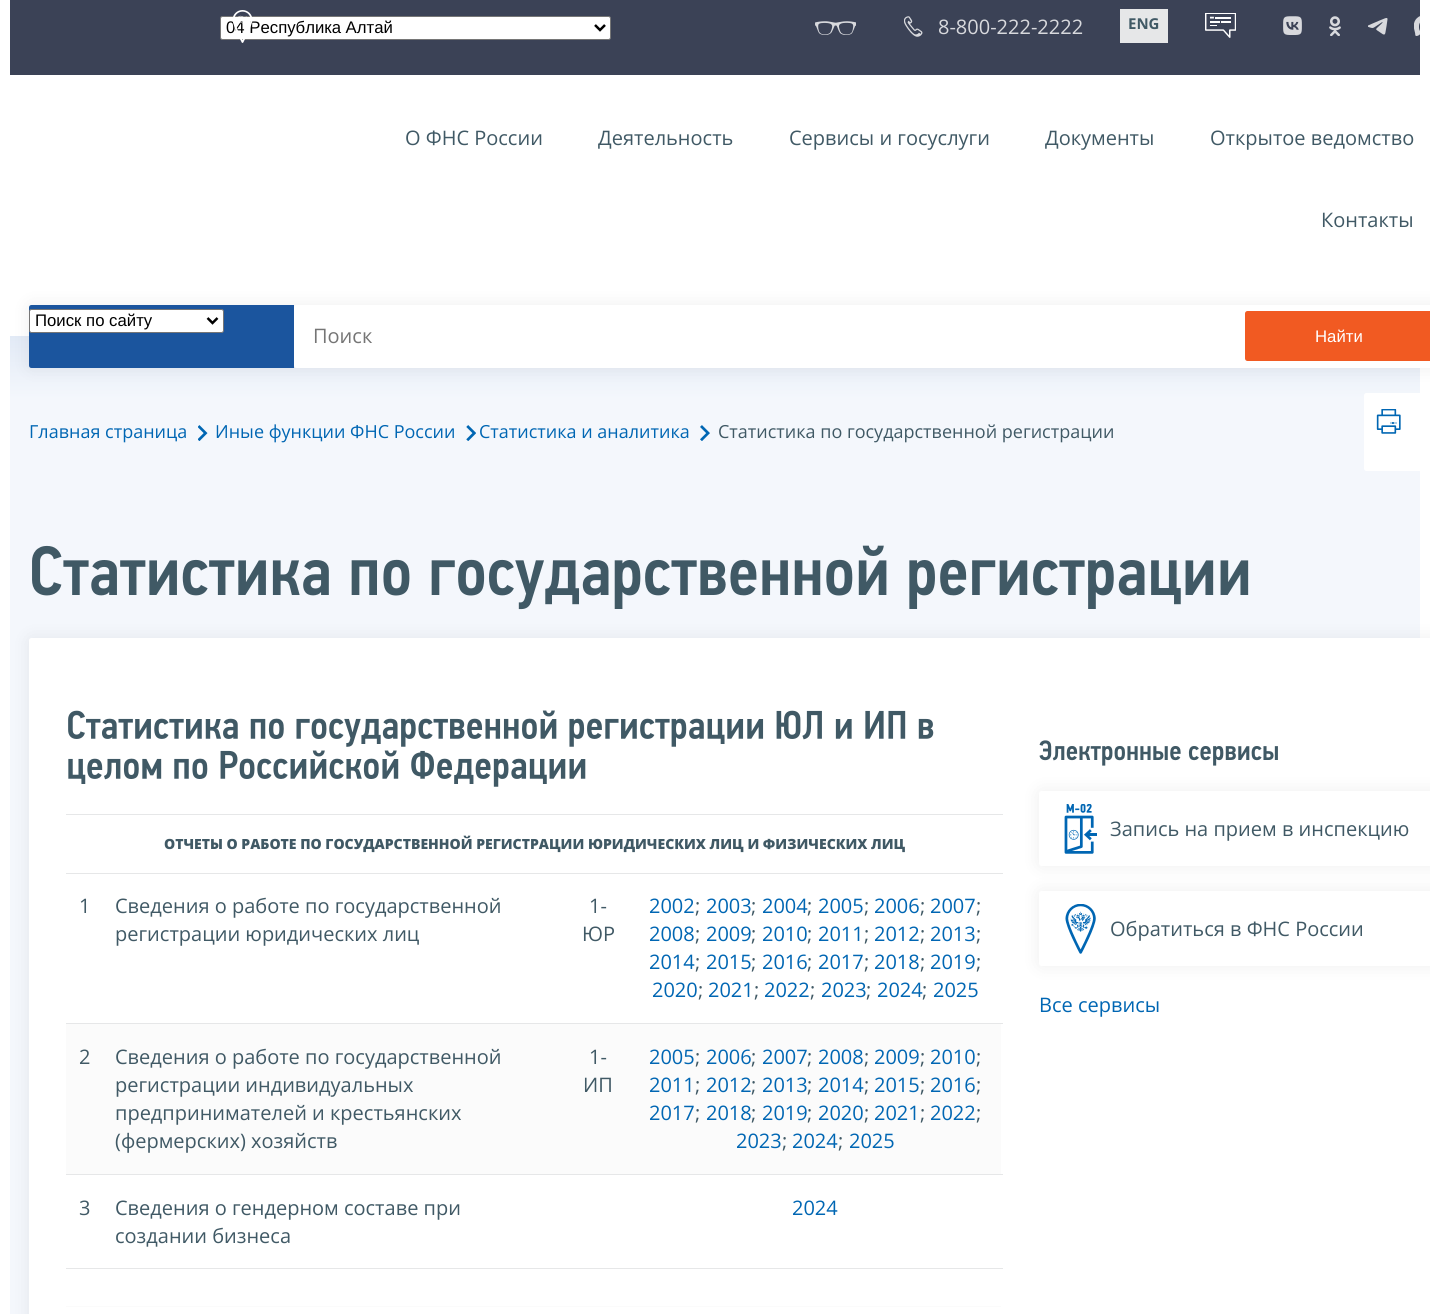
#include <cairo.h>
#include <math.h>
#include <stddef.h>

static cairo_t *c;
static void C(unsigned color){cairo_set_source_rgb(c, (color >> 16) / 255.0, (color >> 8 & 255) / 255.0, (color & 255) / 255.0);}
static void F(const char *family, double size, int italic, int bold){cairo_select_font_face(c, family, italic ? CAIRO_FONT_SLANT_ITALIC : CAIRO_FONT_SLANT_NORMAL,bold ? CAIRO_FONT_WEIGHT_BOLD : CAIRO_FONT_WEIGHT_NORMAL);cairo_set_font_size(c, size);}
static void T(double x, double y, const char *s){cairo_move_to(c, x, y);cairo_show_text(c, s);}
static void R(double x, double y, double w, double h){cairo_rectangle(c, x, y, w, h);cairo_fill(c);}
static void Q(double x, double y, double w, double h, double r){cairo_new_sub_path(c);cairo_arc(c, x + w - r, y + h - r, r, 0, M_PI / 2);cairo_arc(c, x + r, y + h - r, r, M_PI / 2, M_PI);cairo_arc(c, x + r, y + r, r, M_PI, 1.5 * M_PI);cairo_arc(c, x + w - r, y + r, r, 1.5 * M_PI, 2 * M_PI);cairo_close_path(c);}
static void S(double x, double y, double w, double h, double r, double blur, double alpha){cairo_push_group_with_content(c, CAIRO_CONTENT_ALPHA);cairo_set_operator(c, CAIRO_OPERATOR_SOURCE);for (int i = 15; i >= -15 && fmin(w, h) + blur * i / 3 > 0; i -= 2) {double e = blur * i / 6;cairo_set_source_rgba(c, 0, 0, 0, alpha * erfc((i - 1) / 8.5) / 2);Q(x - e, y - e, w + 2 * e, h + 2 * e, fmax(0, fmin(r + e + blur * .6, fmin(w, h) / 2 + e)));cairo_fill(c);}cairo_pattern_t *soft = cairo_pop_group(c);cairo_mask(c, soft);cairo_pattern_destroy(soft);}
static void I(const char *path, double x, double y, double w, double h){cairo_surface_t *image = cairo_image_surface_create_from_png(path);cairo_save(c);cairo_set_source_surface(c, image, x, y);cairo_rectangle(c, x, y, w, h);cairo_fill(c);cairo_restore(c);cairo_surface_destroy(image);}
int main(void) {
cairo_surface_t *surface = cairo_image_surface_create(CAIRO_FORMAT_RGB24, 1430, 1314);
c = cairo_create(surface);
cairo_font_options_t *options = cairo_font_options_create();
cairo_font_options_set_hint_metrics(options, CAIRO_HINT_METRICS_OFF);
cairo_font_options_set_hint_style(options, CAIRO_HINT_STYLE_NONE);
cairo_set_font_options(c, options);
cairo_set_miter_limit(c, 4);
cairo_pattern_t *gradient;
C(0xffffff);
cairo_paint(c);
C(0x3b4256);
R(10,0,1410,75);
C(0xffffff);
Q(220.5,16.5,390,23,2);
cairo_fill_preserve(c);
C(0x767676);
cairo_set_line_width(c,1);
cairo_stroke(c);
F("Liberation Sans",16.75,0,0);
C(0x000000);
T(226,33,"04 Республика Алтай");
I("1.png",233,10,20,33);
cairo_new_path(c);
cairo_move_to(c,595,25);
cairo_line_to(c,600,30);
cairo_line_to(c,605,25);
cairo_set_line_width(c,2.5);
cairo_stroke(c);
I("2.png",815,21,41,14);
I("3.png",904,16,19,21);
F("Open Sans",20,0,0);
C(0xd8d9dd);
T(938,34,"8-800-222-2222");
C(0xe6e7e8);
R(1120,9,48,34);
F("Open Sans",15,0,1);
C(0x405965);
T(1128,29,"ENG");
I("4.png",1205,13,31,25);
I("5.png",1283,16,19,19);
I("6.png",1329,16,12,20);
I("7.png",1368,18,20,17);
I("8.png",1414,16,6,20);
F("Open Sans",20,0,0);
T(405,145,"О ФНС России");
T(598,145,"Деятельность");
T(789,145,"Сервисы и госуслуги");
T(1045,145,"Документы");
T(1210,145,"Открытое ведомство");
T(1321,227,"Контакты");
gradient = cairo_pattern_create_linear(715,336,715,399);
cairo_pattern_add_color_stop_rgba(gradient,0,0.886,0.918,0.965,1);
cairo_pattern_add_color_stop_rgba(gradient,1,0.957,0.969,0.988,1);
cairo_set_source(c,gradient);
cairo_pattern_destroy(gradient);
R(10,336,1410,63);
C(0xf4f7fc);
R(10,399,1410,915);
C(0xffffff);
Q(1364,393,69,78,2.5);
cairo_fill(c);
C(0x000000);
S(29,305,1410,63,2.5,9.5,.07);
C(0x1b559e);
cairo_new_path(c);
cairo_move_to(c,31.5,305);
cairo_line_to(c,294,305);
cairo_line_to(c,294,368);
cairo_line_to(c,31.5,368);
cairo_curve_to(c,30,368,29,367,29,365.5);
cairo_line_to(c,29,307.5);
cairo_curve_to(c,29,306,30,305,31.5,305);
cairo_close_path(c);
cairo_fill(c);
C(0xffffff);
Q(29.5,309.5,194,23,2);
cairo_fill_preserve(c);
C(0x767676);
cairo_set_line_width(c,1);
cairo_stroke(c);
cairo_new_path(c);
cairo_move_to(c,207.5,318);
cairo_line_to(c,212.5,323);
cairo_line_to(c,217.5,318);
C(0x000000);
cairo_set_line_width(c,2.5);
cairo_stroke(c);
F("Liberation Sans",16.75,0,0);
T(35,326,"Поиск по сайту");
C(0xffffff);
Q(294,305,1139,63,2.5);
cairo_fill(c);
F("Open Sans",20,0,0);
C(0x757575);
T(313,343,"Поиск");
C(0xf15a22);
Q(1245,311,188,50,2.5);
cairo_fill(c);
F("Liberation Sans",16.75,0,0);
C(0xffffff);
T(1315,342,"Найти");
F("Open Sans",18,0,0);
C(0x0066b3);
T(29,438,"Главная страница");
I("9.png",198,425,10,16);
T(215,438,"Иные функции ФНС России");
I("10.png",466,425,10,16);
T(479,438,"Статистика и аналитика");
I("11.png",700,425,10,16);
C(0x405965);
T(718,438,"Статистика по государственной регистрации");
I("12.png",1376,409,25,25);
C(0x000000);
S(29,638,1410,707,2.5,9.5,.07);
I("13.png",32,545,1217,65);
C(0xffffff);
Q(29,638,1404,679,2.5);
cairo_fill(c);
I("14.png",68,710,866,37);
I("15.png",68,750,518,37);
C(0xe6e7e8);
R(66,814,937,1);
R(66,873,937,1);
F("Open Sans ExtraBold",14,0,0);
C(0x405965);
T(164,849,"ОТЧЕТЫ О РАБОТЕ ПО ГОСУДАРСТВЕННОЙ РЕГИСТРАЦИИ ЮРИДИЧЕСКИХ ЛИЦ И ФИЗИЧЕСКИХ ЛИЦ");
F("Open Sans",20,0,0);
T(79,913,"1");
T(115,913,"Сведения о работе по государственной");
T(115,941,"регистрации юридических лиц");
T(589,913,"1-");
T(582,941,"ЮР");
C(0xe6e7e8);
R(66,1023,937,1);
C(0x0066b3);
T(649,913,"2002");
C(0x405965);
T(695,913,";");
C(0x0066b3);
T(706,913,"2003");
C(0x405965);
T(751,913,";");
C(0x0066b3);
T(762,913,"2004");
C(0x405965);
T(807,913,";");
C(0x0066b3);
T(818,913,"2005");
C(0x405965);
T(864,913,";");
C(0x0066b3);
T(874,913,"2006");
C(0x405965);
T(920,913,";");
C(0x0066b3);
T(930,913,"2007");
C(0x405965);
T(976,913,";");
C(0x0066b3);
T(649,941,"2008");
C(0x405965);
T(695,941,";");
C(0x0066b3);
T(706,941,"2009");
C(0x405965);
T(751,941,";");
C(0x0066b3);
T(762,941,"2010");
C(0x405965);
T(807,941,";");
C(0x0066b3);
T(818,941,"2011");
C(0x405965);
T(864,941,";");
C(0x0066b3);
T(874,941,"2012");
C(0x405965);
T(920,941,";");
C(0x0066b3);
T(930,941,"2013");
C(0x405965);
T(976,941,";");
C(0x0066b3);
T(649,969,"2014");
C(0x405965);
T(695,969,";");
C(0x0066b3);
T(706,969,"2015");
C(0x405965);
T(751,969,";");
C(0x0066b3);
T(762,969,"2016");
C(0x405965);
T(807,969,";");
C(0x0066b3);
T(818,969,"2017");
C(0x405965);
T(864,969,";");
C(0x0066b3);
T(874,969,"2018");
C(0x405965);
T(920,969,";");
C(0x0066b3);
T(930,969,"2019");
C(0x405965);
T(976,969,";");
C(0x0066b3);
T(652,997,"2020");
C(0x405965);
T(698,997,";");
C(0x0066b3);
T(708,997,"2021");
C(0x405965);
T(754,997,";");
C(0x0066b3);
T(764,997,"2022");
C(0x405965);
T(810,997,";");
C(0x0066b3);
T(821,997,"2023");
C(0x405965);
T(866,997,";");
C(0x0066b3);
T(877,997,"2024");
C(0x405965);
T(922,997,";");
C(0x0066b3);
T(933,997,"2025");
C(0xfbfbfb);
R(66,1024,935,150);
C(0x405965);
T(79,1064,"2");
T(115,1064,"Сведения о работе по государственной");
T(115,1092,"регистрации индивидуальных");
T(115,1120,"предпринимателей и крестьянских");
T(115,1148,"(фермерских) хозяйств");
T(589,1064,"1-");
T(583,1092,"ИП");
C(0xe6e7e8);
R(66,1174,937,1);
C(0x0066b3);
T(649,1064,"2005");
C(0x405965);
T(695,1064,";");
C(0x0066b3);
T(706,1064,"2006");
C(0x405965);
T(751,1064,";");
C(0x0066b3);
T(762,1064,"2007");
C(0x405965);
T(807,1064,";");
C(0x0066b3);
T(818,1064,"2008");
C(0x405965);
T(864,1064,";");
C(0x0066b3);
T(874,1064,"2009");
C(0x405965);
T(920,1064,";");
C(0x0066b3);
T(930,1064,"2010");
C(0x405965);
T(976,1064,";");
C(0x0066b3);
T(649,1092,"2011");
C(0x405965);
T(695,1092,";");
C(0x0066b3);
T(706,1092,"2012");
C(0x405965);
T(751,1092,";");
C(0x0066b3);
T(762,1092,"2013");
C(0x405965);
T(807,1092,";");
C(0x0066b3);
T(818,1092,"2014");
C(0x405965);
T(864,1092,";");
C(0x0066b3);
T(874,1092,"2015");
C(0x405965);
T(920,1092,";");
C(0x0066b3);
T(930,1092,"2016");
C(0x405965);
T(976,1092,";");
C(0x0066b3);
T(649,1120,"2017");
C(0x405965);
T(695,1120,";");
C(0x0066b3);
T(706,1120,"2018");
C(0x405965);
T(751,1120,";");
C(0x0066b3);
T(762,1120,"2019");
C(0x405965);
T(807,1120,";");
C(0x0066b3);
T(818,1120,"2020");
C(0x405965);
T(864,1120,";");
C(0x0066b3);
T(874,1120,"2021");
C(0x405965);
T(920,1120,";");
C(0x0066b3);
T(930,1120,"2022");
C(0x405965);
T(976,1120,";");
C(0x0066b3);
T(736,1148,"2023");
C(0x405965);
T(782,1148,";");
C(0x0066b3);
T(792,1148,"2024");
C(0x405965);
T(838,1148,";");
C(0x0066b3);
T(849,1148,"2025");
C(0x405965);
T(79,1215,"3");
T(115,1215,"Сведения о гендерном составе при");
T(115,1243,"создании бизнеса");
C(0xe6e7e8);
R(66,1268,937,1);
C(0x0066b3);
T(792,1215,"2024");
C(0xfbfbfb);
R(66,1306,935,1);
C(0x000000);
S(1039,791,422,75,2.5,9.5,.07);
I("16.png",1039,740,239,26);
C(0xffffff);
Q(1039,791,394,75,2.5);
cairo_fill(c);
I("17.png",1064,804,33,50);
C(0x405965);
T(1110,836,"Запись на прием в инспекцию");
C(0x000000);
S(1039,891,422,75,2.5,9.5,.07);
C(0xffffff);
Q(1039,891,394,75,2.5);
cairo_fill(c);
I("18.png",1065,904,31,50);
C(0x405965);
T(1110,936,"Обратиться в ФНС России");
C(0x0066b3);
T(1039,1012,"Все сервисы");
cairo_surface_write_to_png(surface, "o.png");
cairo_font_options_destroy(options);
cairo_destroy(c);
cairo_surface_destroy(surface);
return 0;
}
